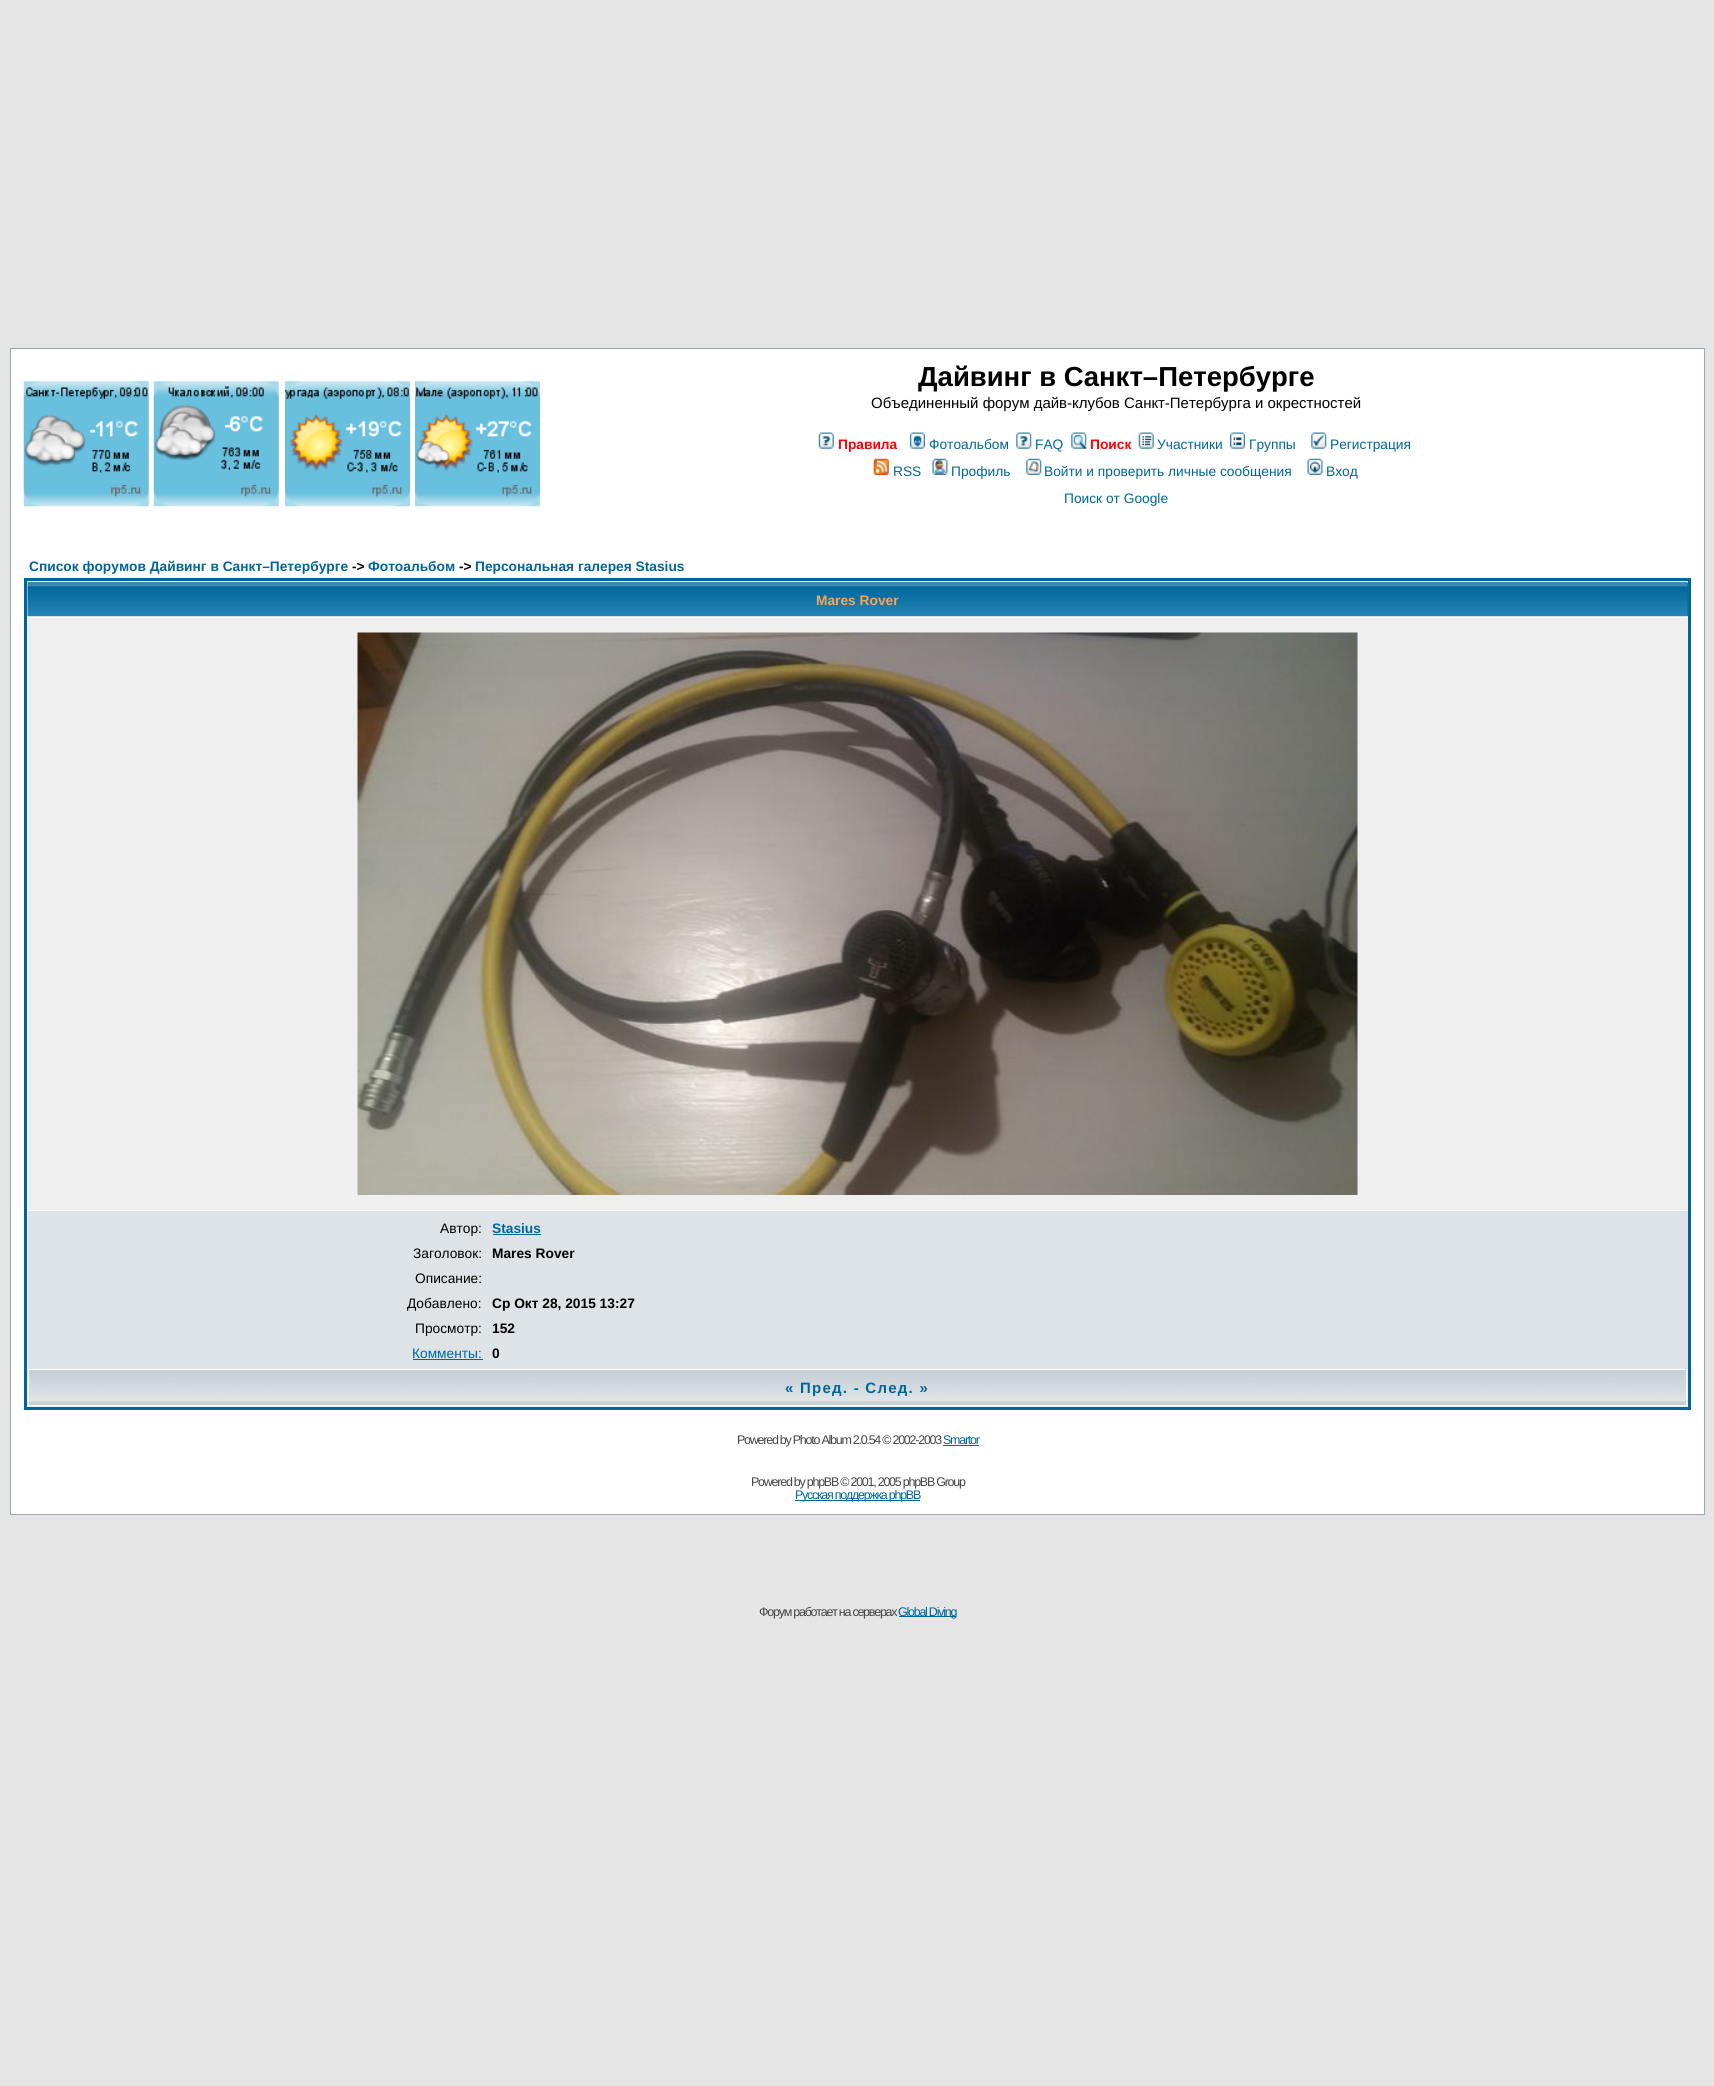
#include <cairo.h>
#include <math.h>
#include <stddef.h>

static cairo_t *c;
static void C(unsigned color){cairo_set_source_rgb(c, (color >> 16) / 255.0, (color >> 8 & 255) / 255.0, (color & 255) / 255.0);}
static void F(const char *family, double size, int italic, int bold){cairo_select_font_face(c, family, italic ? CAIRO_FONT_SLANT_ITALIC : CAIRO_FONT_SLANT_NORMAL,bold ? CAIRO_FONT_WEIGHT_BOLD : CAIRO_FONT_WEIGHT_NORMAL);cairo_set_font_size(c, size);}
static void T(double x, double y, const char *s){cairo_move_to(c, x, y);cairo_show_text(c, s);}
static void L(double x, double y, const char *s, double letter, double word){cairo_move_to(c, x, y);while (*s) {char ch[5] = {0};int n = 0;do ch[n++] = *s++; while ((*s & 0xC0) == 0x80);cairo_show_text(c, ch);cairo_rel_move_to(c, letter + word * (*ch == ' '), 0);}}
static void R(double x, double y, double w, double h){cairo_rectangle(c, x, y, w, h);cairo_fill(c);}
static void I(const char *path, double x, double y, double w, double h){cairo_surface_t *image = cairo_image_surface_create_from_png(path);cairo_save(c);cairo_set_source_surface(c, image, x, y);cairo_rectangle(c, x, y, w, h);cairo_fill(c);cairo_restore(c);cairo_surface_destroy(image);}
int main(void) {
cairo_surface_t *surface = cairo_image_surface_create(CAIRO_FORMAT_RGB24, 1714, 2086);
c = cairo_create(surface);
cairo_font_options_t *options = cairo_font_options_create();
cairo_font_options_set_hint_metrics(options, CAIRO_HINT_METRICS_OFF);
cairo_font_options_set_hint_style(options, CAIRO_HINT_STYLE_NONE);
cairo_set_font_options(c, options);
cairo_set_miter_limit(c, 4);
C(0xe5e5e5);
cairo_paint(c);
C(0xffffff);
cairo_rectangle(c,10.5,348.5,1694,1166);
cairo_fill_preserve(c);
C(0x98aab1);
cairo_set_line_width(c,1);
cairo_stroke(c);
I("1.png",23,381,126,126);
I("2.png",153,381,126,126);
I("3.png",285,381,125,126);
I("4.png",415,381,125,126);
F("Liberation Sans",27.5,0,1);
C(0x000000);
T(918,386,"Дайвинг в Санкт–Петербурге");
F("Liberation Sans",15,0,0);
T(871,408,"Объединенный форум дайв-клубов Санкт-Петербурга и окрестностей");
I("5.png",818,432,16,17);
F("Liberation Sans",13.75,0,1);
C(0xff0000);
T(838,449,"Правила");
I("6.png",910,432,15,17);
F("Liberation Sans",13.75,0,0);
C(0x006699);
T(929,449,"Фотоальбом");
I("7.png",1016,432,16,17);
T(1035,449,"FAQ");
I("8.png",1071,432,16,17);
F("Liberation Sans",13.75,0,1);
C(0xff0000);
T(1090,449,"Поиск");
I("9.png",1138,432,16,17);
F("Liberation Sans",13.75,0,0);
C(0x006699);
T(1157,449,"Участники");
I("10.png",1230,432,15,17);
T(1249,449,"Группы");
I("11.png",1311,432,16,17);
T(1330,449,"Регистрация");
I("12.png",873,458,16,17);
T(893,476,"RSS");
I("13.png",932,458,16,17);
T(951,476,"Профиль");
I("14.png",1026,458,16,17);
T(1044,476,"Войти и проверить личные сообщения");
I("15.png",1307,458,16,17);
T(1326,476,"Вход");
T(1064,503,"Поиск от Google");
F("Liberation Sans",13.75,0,1);
T(29,571,"Список форумов Дайвинг в Санкт–Петербурге");
C(0x000000);
T(352,571,"->");
C(0x006699);
T(368,571,"Фотоальбом");
C(0x000000);
T(459,571,"->");
C(0x006699);
T(475,571,"Персональная галерея Stasius");
cairo_rectangle(c,25.5,579.5,1664,829);
cairo_set_line_width(c,3);
cairo_stroke(c);
R(1687,583,1,33);
I("16.png",27,581,1661,36);
C(0xffffff);
R(28,581,1660,1);
C(0xffa34f);
T(816,605,"Mares Rover");
C(0xefefef);
R(28,618,1660,592);
I("17.png",357,632,1001,563);
C(0xdee3e7);
R(28,1211,1660,158);
F("Liberation Sans",13.75,0,0);
C(0x000000);
T(440,1233,"Автор:");
F("Liberation Sans",13.75,0,1);
C(0x006699);
T(492,1233,"Stasius");
R(493,1234,48,1);
F("Liberation Sans",13.75,0,0);
C(0x000000);
T(413,1258,"Заголовок:");
F("Liberation Sans",13.75,0,1);
T(492,1258,"Mares Rover");
F("Liberation Sans",13.75,0,0);
T(415,1283,"Описание:");
T(407,1308,"Добавлено:");
F("Liberation Sans",13.75,0,1);
T(492,1308,"Ср Окт 28, 2015 13:27");
F("Liberation Sans",13.75,0,0);
T(415,1333,"Просмотр:");
F("Liberation Sans",13.75,0,1);
T(492,1333,"152");
F("Liberation Sans",13.75,0,0);
C(0x006699);
T(412,1358,"Комменты:");
R(413,1359,70,1);
F("Liberation Sans",13.75,0,1);
C(0x000000);
T(492,1358,"0");
I("18.png",27,1370,1661,37);
C(0xffffff);
R(1686,1370,1,36);
R(28,1405,1660,1);
R(28,1370,1,36);
F("Liberation Sans",15,0,1);
C(0x006699);
L(785,1393,"« Пред. - След. »",1.25,0);
F("Liberation Sans",12.5,0,0);
C(0x444444);
L(737,1444,"Powered by Photo Album 2.0.54 © 2002-2003",-1.25,0);
C(0x006699);
L(943,1444,"Smartor",-1.25,0);
R(943,1445,36,1);
C(0x444444);
L(751,1486,"Powered by phpBB © 2001, 2005 phpBB Group",-1.25,0);
C(0x006699);
R(795,1500,125,1);
L(795,1499,"Русская поддержка phpBB",-1.25,0);
C(0x444444);
L(759,1616,"Форум работает на серверах",-1.25,0);
C(0x006699);
R(899,1616,57,1);
L(898,1616,"Global Diving",-1.25,0);
cairo_surface_write_to_png(surface, "o.png");
cairo_font_options_destroy(options);
cairo_destroy(c);
cairo_surface_destroy(surface);
return 0;
}
